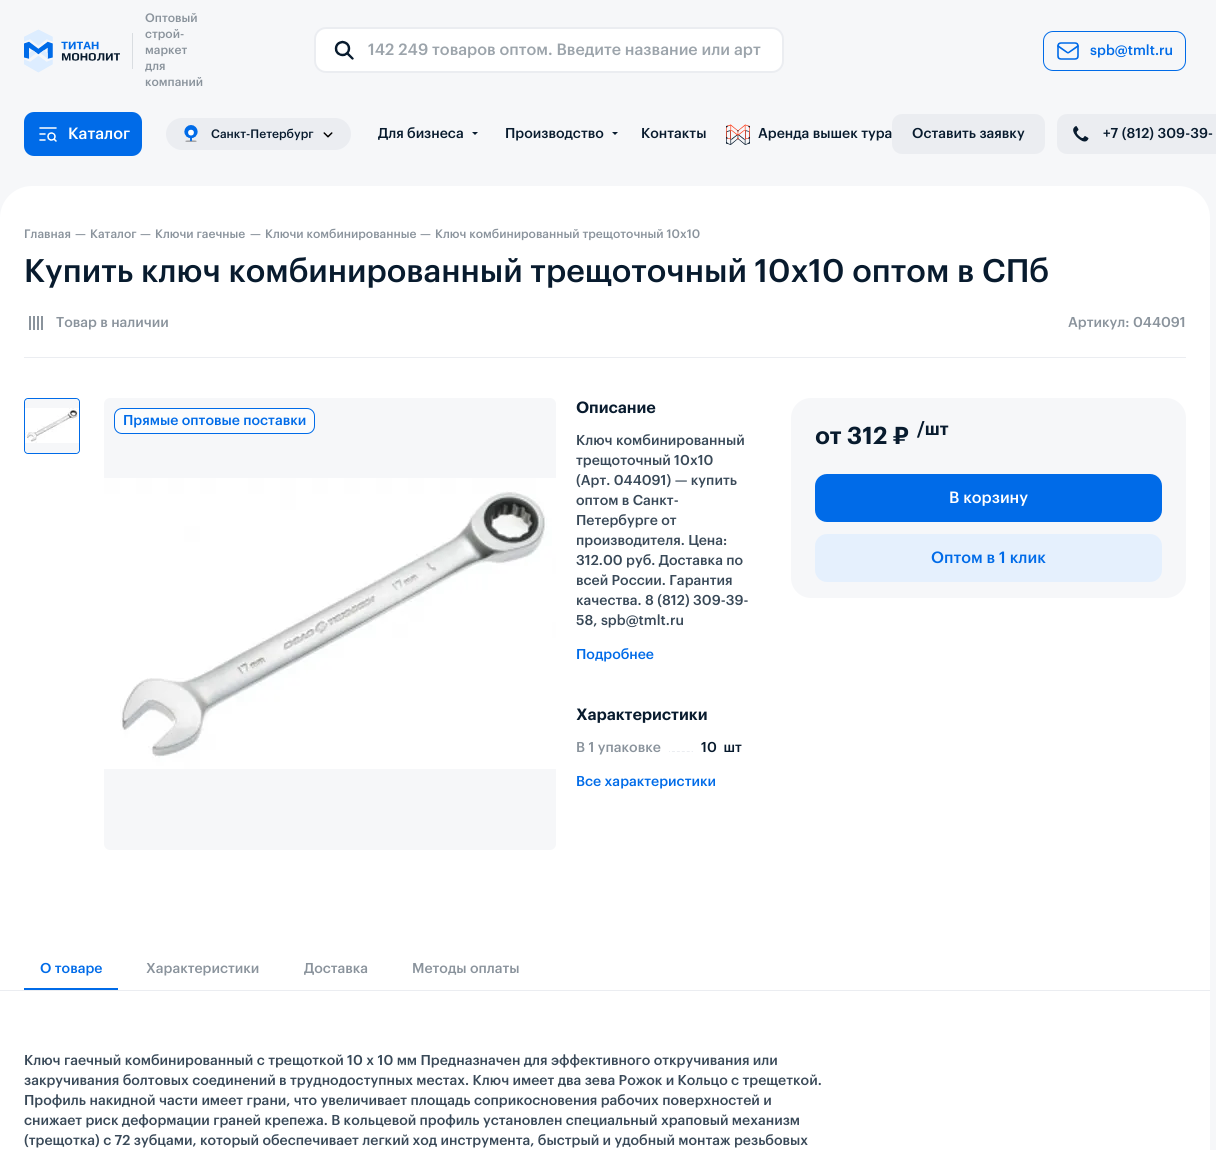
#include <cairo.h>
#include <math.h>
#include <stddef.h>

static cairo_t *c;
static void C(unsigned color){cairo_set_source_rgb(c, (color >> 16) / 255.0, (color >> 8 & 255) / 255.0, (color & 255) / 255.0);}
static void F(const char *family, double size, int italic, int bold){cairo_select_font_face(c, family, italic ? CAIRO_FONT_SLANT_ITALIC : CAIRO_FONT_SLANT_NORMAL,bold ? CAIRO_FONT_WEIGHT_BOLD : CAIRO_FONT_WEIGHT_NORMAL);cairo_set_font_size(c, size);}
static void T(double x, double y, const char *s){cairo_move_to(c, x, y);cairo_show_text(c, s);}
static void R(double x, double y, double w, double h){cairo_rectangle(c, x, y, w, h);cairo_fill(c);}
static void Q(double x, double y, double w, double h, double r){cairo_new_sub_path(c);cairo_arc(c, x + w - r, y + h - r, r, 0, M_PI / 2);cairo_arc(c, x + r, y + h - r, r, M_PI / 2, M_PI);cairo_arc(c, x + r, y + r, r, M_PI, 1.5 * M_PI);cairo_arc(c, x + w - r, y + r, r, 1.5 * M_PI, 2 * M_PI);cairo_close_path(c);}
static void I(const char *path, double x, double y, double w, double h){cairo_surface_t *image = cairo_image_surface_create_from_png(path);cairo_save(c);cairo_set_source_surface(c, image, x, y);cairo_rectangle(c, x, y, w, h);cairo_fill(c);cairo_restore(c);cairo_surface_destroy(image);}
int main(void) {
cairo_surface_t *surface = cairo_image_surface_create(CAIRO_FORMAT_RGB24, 1216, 1150);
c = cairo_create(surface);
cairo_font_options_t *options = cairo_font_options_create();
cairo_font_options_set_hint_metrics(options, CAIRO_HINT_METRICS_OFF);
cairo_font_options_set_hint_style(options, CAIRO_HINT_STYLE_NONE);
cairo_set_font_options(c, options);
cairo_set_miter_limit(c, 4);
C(0xf6f7f9);
cairo_paint(c);
I("1.png",24,29,96,44);
C(0xd9dde1);
R(132,33,1,36);
F("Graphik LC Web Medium",12,0,0);
C(0x8a939c);
T(145,22,"Оптовый");
T(145,38,"строй-");
T(145,54,"маркет");
T(145,70,"для");
T(145,86,"компаний");
C(0xffffff);
Q(315,28,468,44,11);
cairo_fill_preserve(c);
C(0xebedf1);
cairo_stroke(c);
I("2.png",334,40,20,20);
F("Graphik LC Web Medium",16,0,0);
C(0x9ca4ab);
T(368,55,"142 249 товаров оптом. Введите название или арт");
Q(1043.5,31.5,142,39,9.5);
C(0x006be8);
cairo_set_line_width(c,1);
cairo_stroke(c);
I("3.png",1057,42,22,18);
F("Graphik LC Web Medium",14,0,0);
T(1090,55,"spb@tmlt.ru");
Q(24,112,118,44,10);
cairo_fill(c);
I("4.png",39,127,18,15);
F("Graphik LC Web Medium",16,0,0);
C(0xffffff);
T(68,139,"Каталог");
C(0xebedf1);
Q(166,118,185,32,16);
cairo_fill(c);
I("5.png",184,125,14,17);
F("Graphik LC Web Medium",12,0,0);
C(0x081b2e);
T(211,138,"Санкт-Петербург");
I("6.png",323,132,10,6);
F("Graphik LC Web Medium",14,0,0);
T(378,138,"Для бизнеса");
cairo_new_path(c);
cairo_move_to(c,472,132);
cairo_line_to(c,478,132);
cairo_line_to(c,475,135);
cairo_close_path(c);
cairo_fill(c);
T(505,138,"Производство");
cairo_new_path(c);
cairo_move_to(c,612,132);
cairo_line_to(c,618,132);
cairo_line_to(c,615,135);
cairo_close_path(c);
cairo_fill(c);
T(641,138,"Контакты");
I("7.png",726,124,24,21);
T(758,138,"Аренда вышек тура");
C(0xebedf1);
Q(892,114,153,40,10);
cairo_fill(c);
C(0x081b2e);
T(912,138,"Оставить заявку");
C(0xebedf1);
Q(1057,114,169,40,10);
cairo_fill(c);
I("8.png",1073,126,16,16);
C(0x081b2e);
T(1103,138,"+7 (812) 309-39-");
C(0xffffff);
Q(0,186,1210,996,32);
cairo_fill(c);
F("Graphik LC Web Medium",12,0,0);
C(0x8a939c);
T(24,238,"Главная");
T(75,238,"—");
T(90,238,"Каталог");
T(140,238,"—");
T(155,238,"Ключи гаечные");
T(250,238,"—");
T(265,238,"Ключи комбинированные");
T(420,238,"—");
T(435,238,"Ключ комбинированный трещоточный 10х10");
F("Graphik LC Web Medium",32,0,0);
C(0x081b2e);
T(24,282,"Купить ключ комбинированный трещоточный 10х10 оптом в СПб");
I("9.png",29,316,14,14);
F("Graphik LC Web Medium",14,0,0);
C(0x8a939c);
T(56,327,"Товар в наличии");
T(1068,327,"Артикул:");
T(1133,327,"044091");
C(0xebedf1);
R(24,357,1162,1);
Q(24.5,398.5,55,55,3.5);
C(0x006be8);
cairo_stroke(c);
C(0xf6f7f9);
Q(25,399,54,54,4);
cairo_fill(c);
I("10.png",25,408,54,35);
Q(104,398,452,452,6);
cairo_fill(c);
I("11.png",104,478,452,291);
C(0xfbfcfd);
Q(114.5,408.5,200,25,7.5);
cairo_fill_preserve(c);
C(0x006be8);
cairo_stroke(c);
T(123,425,"Прямые оптовые поставки");
F("Graphik LC Web SemiBold",16,0,0);
C(0x081b2e);
T(576,413,"Описание");
F("Graphik LC Web Medium",14,0,0);
C(0x394958);
T(576,445,"Ключ комбинированный");
T(576,465,"трещоточный 10х10");
T(576,485,"(Арт. 044091) — купить");
T(576,505,"оптом в Санкт-");
T(576,525,"Петербурге от");
T(576,545,"производителя. Цена:");
T(576,565,"312.00 руб. Доставка по");
T(576,585,"всей России. Гарантия");
T(576,605,"качества. 8 (812) 309-39-");
T(576,625,"58, spb@tmlt.ru");
C(0x006be8);
T(576,659,"Подробнее");
F("Graphik LC Web SemiBold",16,0,0);
C(0x081b2e);
T(576,720,"Характеристики");
cairo_new_path(c);
cairo_move_to(c,583,751.5);
cairo_line_to(c,759,751.5);
C(0xebedf1);
cairo_set_dash(c,(double[]){3,1.94},2,0);
cairo_stroke(c);
C(0xffffff);
R(583,751,86,1);
F("Graphik LC Web Medium",14,0,0);
C(0x8a939c);
T(576,752,"В 1 упаковке");
C(0xffffff);
R(693,751,66,1);
C(0x081b2e);
T(701,752,"10  шт");
C(0x006be8);
T(576,786,"Все характеристики");
C(0xf6f7f9);
Q(791,398,395,200,20);
cairo_fill(c);
F("Graphik LC Web SemiBold",24,0,0);
C(0x081b2e);
T(815,444,"от 312 ₽");
F("Graphik LC Web SemiBold",18,0,0);
T(917,435,"/шт");
C(0x006be8);
Q(815,474,347,48,12);
cairo_fill(c);
F("Graphik LC Web Medium",16,0,0);
C(0xffffff);
T(949,503,"В корзину");
C(0xe5f0fd);
Q(815,534,347,48,12);
cairo_fill(c);
C(0x006be8);
T(931,563,"Оптом в 1 клик");
C(0xebedf1);
R(0,990,1210,1);
C(0x006be8);
R(24,988,94,2);
F("Graphik LC Web Medium",14,0,0);
T(40,973,"О товаре");
C(0x8a939c);
T(146,973,"Характеристики");
T(304,973,"Доставка");
T(412,973,"Методы оплаты");
C(0x394958);
T(24,1065,"Ключ гаечный комбинированный с трещоткой 10 х 10 мм Предназначен для эффективного откручивания или");
T(24,1085,"закручивания болтовых соединений в труднодоступных местах. Ключ имеет два зева Рожок и Кольцо с трещеткой.");
T(24,1105,"Профиль накидной части имеет грани, что увеличивает площадь соприкосновения рабочих поверхностей и");
T(24,1125,"снижает риск деформации граней крепежа. В кольцевой профиль установлен специальный храповый механизм");
T(24,1145,"(трещотка) с 72 зубцами, который обеспечивает легкий ход инструмента, быстрый и удобный монтаж резьбовых");
cairo_surface_write_to_png(surface, "o.png");
cairo_font_options_destroy(options);
cairo_destroy(c);
cairo_surface_destroy(surface);
return 0;
}
